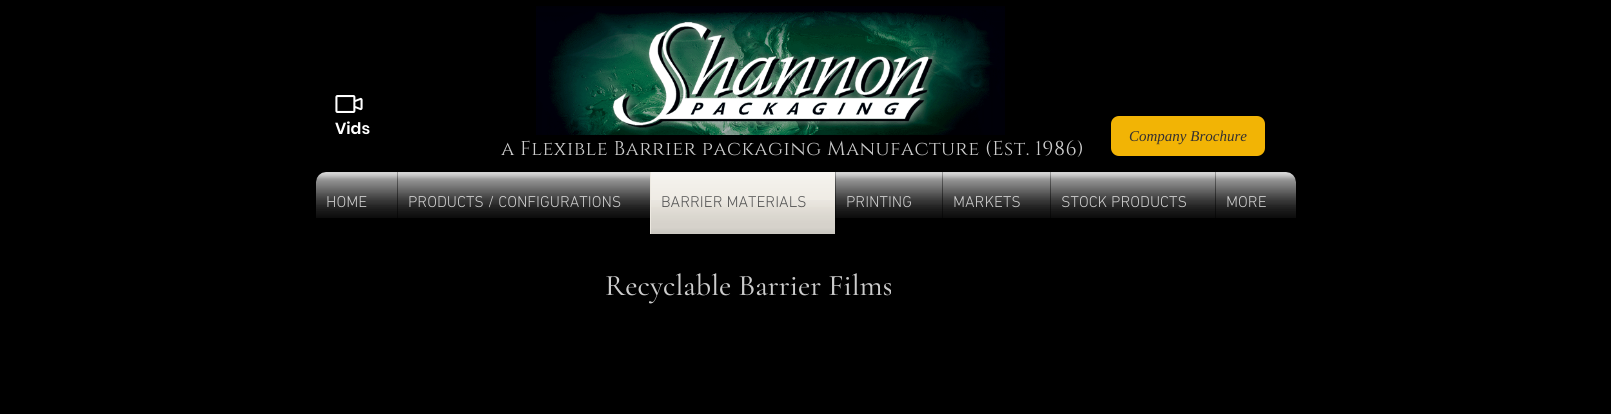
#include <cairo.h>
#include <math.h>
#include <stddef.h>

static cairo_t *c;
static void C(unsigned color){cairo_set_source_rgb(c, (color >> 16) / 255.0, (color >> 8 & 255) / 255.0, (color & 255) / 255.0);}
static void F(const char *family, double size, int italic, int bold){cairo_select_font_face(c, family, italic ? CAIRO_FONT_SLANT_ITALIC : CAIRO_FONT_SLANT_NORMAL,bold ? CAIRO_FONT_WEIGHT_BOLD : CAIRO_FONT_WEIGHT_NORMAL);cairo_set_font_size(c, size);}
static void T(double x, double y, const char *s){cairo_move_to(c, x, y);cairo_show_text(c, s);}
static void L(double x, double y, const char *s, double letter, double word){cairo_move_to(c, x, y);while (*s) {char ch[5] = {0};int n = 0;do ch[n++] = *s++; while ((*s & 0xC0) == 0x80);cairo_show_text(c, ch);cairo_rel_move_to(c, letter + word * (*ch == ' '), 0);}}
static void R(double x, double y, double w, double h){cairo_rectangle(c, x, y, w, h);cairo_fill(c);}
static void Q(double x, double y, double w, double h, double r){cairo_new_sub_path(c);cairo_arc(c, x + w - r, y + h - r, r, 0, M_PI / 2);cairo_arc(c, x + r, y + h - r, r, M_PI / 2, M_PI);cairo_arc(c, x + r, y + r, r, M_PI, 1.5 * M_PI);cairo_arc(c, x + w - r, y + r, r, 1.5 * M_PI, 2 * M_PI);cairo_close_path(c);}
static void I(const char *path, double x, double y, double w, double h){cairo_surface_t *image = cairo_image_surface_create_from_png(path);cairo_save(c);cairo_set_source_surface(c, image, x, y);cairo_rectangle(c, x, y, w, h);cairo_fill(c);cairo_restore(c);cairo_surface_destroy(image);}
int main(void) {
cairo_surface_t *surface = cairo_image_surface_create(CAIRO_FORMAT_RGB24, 1611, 414);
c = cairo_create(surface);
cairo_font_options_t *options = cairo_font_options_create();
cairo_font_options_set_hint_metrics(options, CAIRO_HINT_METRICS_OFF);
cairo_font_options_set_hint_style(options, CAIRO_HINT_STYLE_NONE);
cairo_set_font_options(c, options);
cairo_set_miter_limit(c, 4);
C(0x000000);
cairo_paint(c);
I("1.png",335,95,28,18);
I("2.png",536,6,469,129);
F("Poppins SemiBold",16,0,0);
C(0xffffff);
T(335,134,"Vids");
C(0xf2b405);
Q(1111,116,154,40,8);
cairo_fill(c);
F("Liberation Serif",15,1,0);
C(0x353131);
T(1129,141,"Company Brochure");
F("Cinzel",20,0,0);
C(0xcccccc);
L(501,155,"a Flexible Barrier packaging Manufacture (Est. 1986)",.4,0);
I("3.png",316,172,980,46);
F("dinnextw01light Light",16,0,0);
T(326,207,"HOME");
I("4.png",316,172,81,46);
cairo_set_source_rgba(c,0,0,0,0.03);
R(327,200,39,7);
C(0xcccccc);
T(408,207,"PRODUCTS / CONFIGURATIONS");
I("5.png",398,172,252,46);
cairo_set_source_rgba(c,0,0,0,0.03);
R(409,200,211,7);
C(0xede9e1);
R(650,172,185,62);
C(0x444444);
T(661,207,"BARRIER MATERIALS");
I("6.png",651,172,184,35);
I("7.png",651,200,184,34);
C(0xcccccc);
T(846,207,"PRINTING");
I("8.png",836,172,106,46);
cairo_set_source_rgba(c,0,0,0,0.03);
R(847,200,63,7);
C(0xcccccc);
T(953,207,"MARKETS");
I("9.png",943,172,107,46);
cairo_set_source_rgba(c,0,0,0,0.03);
R(954,200,65,7);
C(0xcccccc);
T(1061,207,"STOCK PRODUCTS");
I("10.png",1051,172,164,46);
cairo_set_source_rgba(c,0,0,0,0.03);
R(1062,200,123,7);
C(0xcccccc);
T(1226,207,"MORE");
I("11.png",1216,172,80,46);
cairo_set_source_rgba(c,0,0,0,0.03);
R(1227,200,38,7);
F("Cormorant Garamond Medium",30,0,0);
C(0xcccccc);
T(605,295,"Recyclable Barrier Films");
cairo_surface_write_to_png(surface, "o.png");
cairo_font_options_destroy(options);
cairo_destroy(c);
cairo_surface_destroy(surface);
return 0;
}
